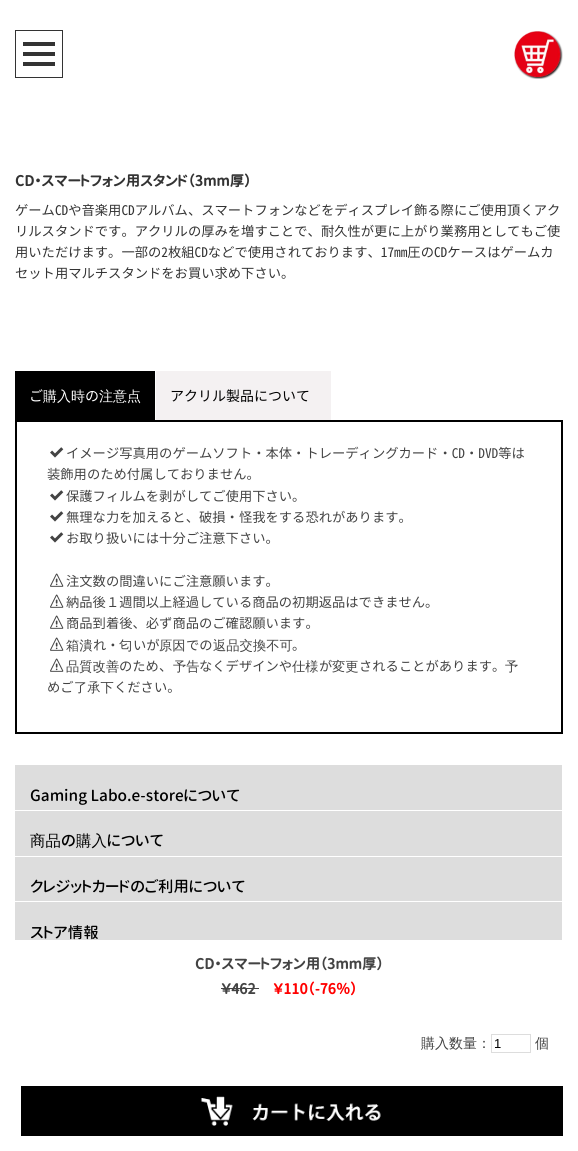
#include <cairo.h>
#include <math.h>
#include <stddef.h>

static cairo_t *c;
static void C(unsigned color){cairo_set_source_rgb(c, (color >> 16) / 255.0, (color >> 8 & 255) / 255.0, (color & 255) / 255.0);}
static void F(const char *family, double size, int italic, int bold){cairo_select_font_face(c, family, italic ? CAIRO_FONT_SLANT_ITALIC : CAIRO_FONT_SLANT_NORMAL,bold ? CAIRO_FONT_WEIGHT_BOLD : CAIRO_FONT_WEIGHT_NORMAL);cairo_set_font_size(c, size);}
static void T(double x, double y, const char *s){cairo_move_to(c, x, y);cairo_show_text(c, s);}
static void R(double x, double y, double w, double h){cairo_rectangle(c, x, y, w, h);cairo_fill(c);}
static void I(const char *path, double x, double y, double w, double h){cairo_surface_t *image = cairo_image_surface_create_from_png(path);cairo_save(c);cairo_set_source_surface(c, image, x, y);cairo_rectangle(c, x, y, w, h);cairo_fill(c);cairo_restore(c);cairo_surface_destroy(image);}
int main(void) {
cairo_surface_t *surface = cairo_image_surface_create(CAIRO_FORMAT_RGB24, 578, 1151);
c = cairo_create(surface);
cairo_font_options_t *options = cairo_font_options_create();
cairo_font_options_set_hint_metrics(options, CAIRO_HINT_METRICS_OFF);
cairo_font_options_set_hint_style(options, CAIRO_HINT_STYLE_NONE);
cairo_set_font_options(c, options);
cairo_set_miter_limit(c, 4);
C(0xffffff);
cairo_paint(c);
cairo_rectangle(c,15.5,30.5,47,47);
C(0x333333);
cairo_set_line_width(c,1);
cairo_stroke(c);
R(23,42,32,4);
R(23,52,32,4);
R(23,62,32,4);
I("1.png",514,31,49,48);
F("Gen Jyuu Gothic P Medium",14.25,0,1);
T(15,186,"CD・スマートフォン用スタンド（3mm厚）");
F("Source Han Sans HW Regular",13.3,0,0);
T(15,215,"ゲームCDや音楽用CDアルバム、スマートフォンなどをディスプレイ飾る際にご使用頂くアク");
T(15,236,"リルスタンドです。アクリルの厚みを増すことで、耐久性が更に上がり業務用としてもご使");
T(15,257,"用いただけます。一部の2枚組CDなどで使用されております、17mm圧のCDケースはゲームカ");
T(15,278,"セット用マルチスタンドをお買い求め下さい。");
C(0x000000);
R(15,371,140,49);
F("Source Han Sans HW Regular",14,0,0);
C(0xffffff);
T(29,401,"ご");
F("WenQuanYi Zen Hei Medium",14,0,0);
T(43,401,"購入時");
F("Source Han Sans HW Regular",14,0,0);
T(85,401,"の");
F("WenQuanYi Zen Hei Medium",14,0,0);
T(99,401,"注意点");
C(0xf4f1f2);
R(156,371,175,49);
F("Source Han Sans HW Regular",14,0,0);
C(0x000000);
T(170,401,"アクリル製品について");
cairo_rectangle(c,16,421,546,312);
cairo_set_line_width(c,2);
cairo_stroke(c);
I("2.png",50,447,14,11);
F("Source Han Sans HW Regular",13.3,0,0);
C(0x434343);
T(66,458,"イメージ写真用のゲームソフト・本体・トレーディングカード・CD・DVD等は");
T(47,479,"装飾用のため付属しておりません。");
I("2.png",50,490,14,11);
T(66,501,"保護フィルムを剥がしてご使用下さい。");
I("2.png",50,511,14,11);
T(66,522,"無理な力を加えると、破損・怪我をする恐れがあります。");
I("2.png",50,532,14,11);
T(66,543,"お取り扱いには十分ご注意下さい。");
I("3.png",50,573,14,14);
T(66,586,"注文数の間違いにご注意願います。");
I("3.png",50,594,14,14);
T(66,607,"納品後１週間以上経過している商品の初期返品はできません。");
I("3.png",50,615,14,14);
T(66,628,"商品到着後、必ず商品のご確認願います。");
I("3.png",50,637,14,14);
F("WenQuanYi Zen Hei Medium",13.3,0,0);
T(66,650,"箱潰");
F("Source Han Sans HW Regular",13.3,0,0);
T(93,650,"れ・");
F("WenQuanYi Zen Hei Medium",13.3,0,0);
T(119,650,"匂");
F("Source Han Sans HW Regular",13.3,0,0);
T(133,650,"いが");
F("WenQuanYi Zen Hei Medium",13.3,0,0);
T(159,650,"原因");
F("Source Han Sans HW Regular",13.3,0,0);
T(186,650,"での");
F("WenQuanYi Zen Hei Medium",13.3,0,0);
T(213,650,"返品交換不可");
F("Source Han Sans HW Regular",13.3,0,0);
T(292,650,"。");
I("3.png",50,658,14,14);
F("WenQuanYi Zen Hei Medium",13.3,0,0);
T(66,671,"品質改善");
F("Source Han Sans HW Regular",13.3,0,0);
T(119,671,"のため、");
F("WenQuanYi Zen Hei Medium",13.3,0,0);
T(173,671,"予告");
F("Source Han Sans HW Regular",13.3,0,0);
T(199,671,"なくデザインや");
F("WenQuanYi Zen Hei Medium",13.3,0,0);
T(292,671,"仕様");
F("Source Han Sans HW Regular",13.3,0,0);
T(319,671,"が");
F("WenQuanYi Zen Hei Medium",13.3,0,0);
T(332,671,"変更");
F("Source Han Sans HW Regular",13.3,0,0);
T(359,671,"されることがあります。");
F("WenQuanYi Zen Hei Medium",13.3,0,0);
T(505,671,"予");
F("Source Han Sans HW Regular",13.3,0,0);
T(47,692,"めご");
F("WenQuanYi Zen Hei Medium",13.3,0,0);
T(74,692,"了承下");
F("Source Han Sans HW Regular",13.3,0,0);
T(114,692,"ください。");
C(0xdddddd);
R(15,765,547,45);
F("Gen Jyuu Gothic P Medium Medium",15.4,0,0);
C(0x000000);
T(30,801,"Gaming Labo.e-storeについて");
C(0xdddddd);
R(15,811,547,45);
F("WenQuanYi Zen Hei Medium",15.4,0,0);
C(0x000000);
T(30,846,"商品");
F("Gen Jyuu Gothic P Medium Medium",15.4,0,0);
T(61,846,"の");
F("WenQuanYi Zen Hei Medium",15.4,0,0);
T(76,846,"購入");
F("Gen Jyuu Gothic P Medium Medium",15.4,0,0);
T(107,846,"について");
C(0xdddddd);
R(15,857,547,44);
C(0x000000);
T(30,892,"クレジットカードのご利用について");
C(0xdddddd);
R(15,902,547,38);
C(0x000000);
T(30,938,"ストア情報");
F("Gen Jyuu Gothic P Medium",14.25,0,1);
C(0x434343);
T(195,969,"CD・スマートフォン用（3mm厚）");
T(221,994,"￥462");
R(221,988,38,1);
C(0xff0000);
T(273,994,"￥110（-76％）");
F("WenQuanYi Zen Hei Medium",14,0,0);
C(0x434343);
T(421,1048,"購入数量：");
cairo_rectangle(c,491.5,1034.5,39,18);
C(0xdddddd);
cairo_set_line_width(c,1);
cairo_stroke(c);
F("Liberation Sans",13,0,0);
C(0x000000);
T(494,1048,"1");
F("WenQuanYi Zen Hei Medium",14,0,0);
C(0x434343);
T(535,1048,"個");
I("4.png",21,1086,542,50);
cairo_surface_write_to_png(surface, "o.png");
cairo_font_options_destroy(options);
cairo_destroy(c);
cairo_surface_destroy(surface);
return 0;
}
